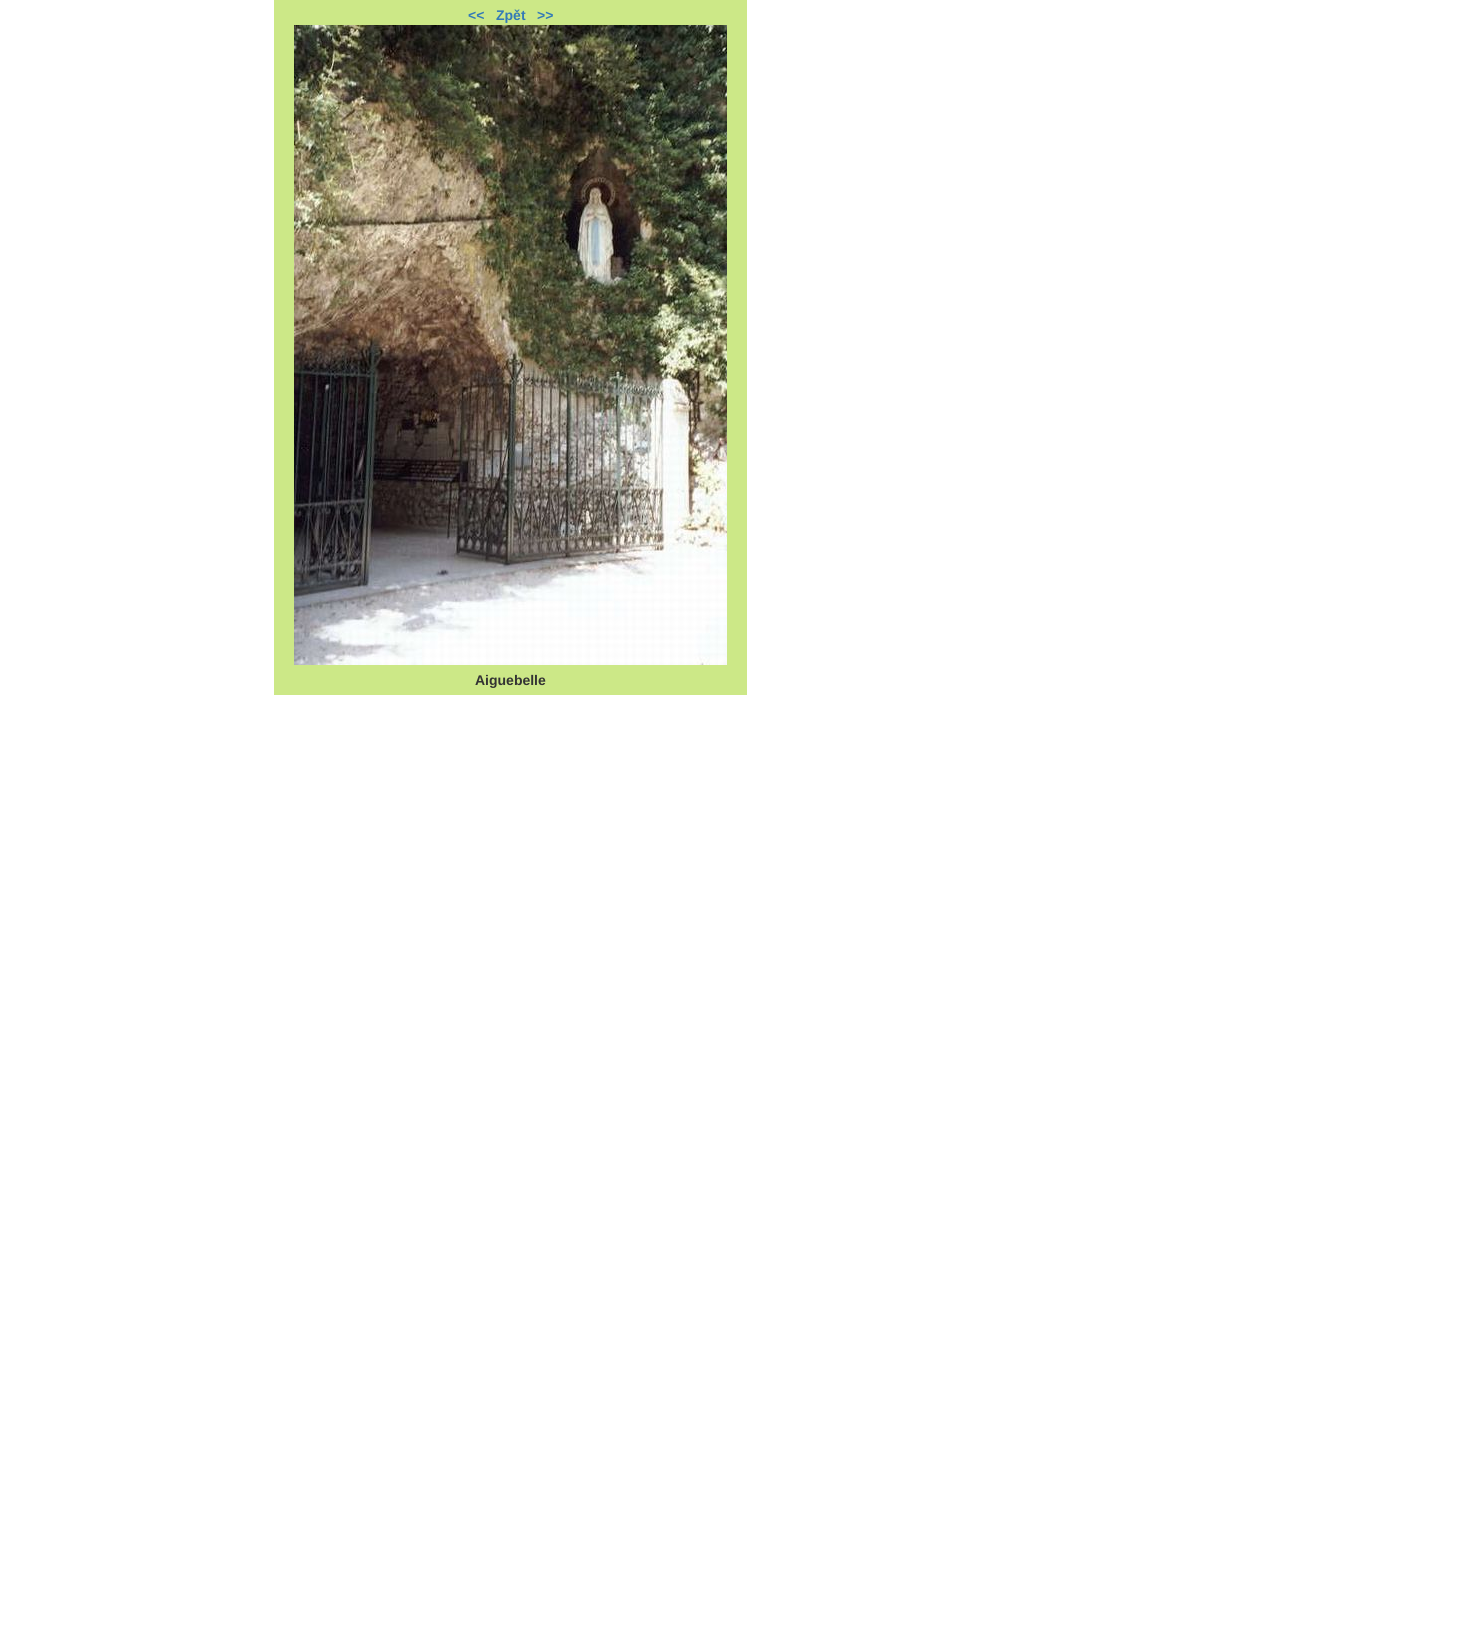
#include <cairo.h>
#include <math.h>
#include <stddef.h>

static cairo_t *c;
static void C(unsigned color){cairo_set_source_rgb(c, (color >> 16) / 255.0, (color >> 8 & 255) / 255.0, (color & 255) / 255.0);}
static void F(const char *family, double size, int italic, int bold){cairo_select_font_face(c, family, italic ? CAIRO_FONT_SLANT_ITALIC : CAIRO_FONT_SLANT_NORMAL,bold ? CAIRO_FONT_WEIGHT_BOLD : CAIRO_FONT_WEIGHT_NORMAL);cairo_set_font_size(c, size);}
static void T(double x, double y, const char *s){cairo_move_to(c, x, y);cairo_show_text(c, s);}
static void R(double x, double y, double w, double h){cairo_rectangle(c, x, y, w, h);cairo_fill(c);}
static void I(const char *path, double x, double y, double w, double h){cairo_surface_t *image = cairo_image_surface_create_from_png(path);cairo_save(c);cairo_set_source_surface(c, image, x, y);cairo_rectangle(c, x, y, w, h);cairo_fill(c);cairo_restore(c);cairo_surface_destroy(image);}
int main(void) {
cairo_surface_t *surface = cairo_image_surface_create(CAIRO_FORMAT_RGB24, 1461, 1627);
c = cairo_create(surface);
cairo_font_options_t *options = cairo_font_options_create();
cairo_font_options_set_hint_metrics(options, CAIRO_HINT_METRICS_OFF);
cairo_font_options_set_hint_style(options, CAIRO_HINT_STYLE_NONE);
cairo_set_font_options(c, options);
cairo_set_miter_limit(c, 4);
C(0xffffff);
cairo_paint(c);
C(0xcce887);
R(274,0,473,695);
F("Liberation Sans",14,0,1);
C(0x337ab7);
T(468,20,"<<");
T(496,20,"Zpět");
T(537,20,">>");
I("1.png",294,25,433,640);
C(0x333333);
T(475,685,"Aiguebelle");
cairo_surface_write_to_png(surface, "o.png");
cairo_font_options_destroy(options);
cairo_destroy(c);
cairo_surface_destroy(surface);
return 0;
}
